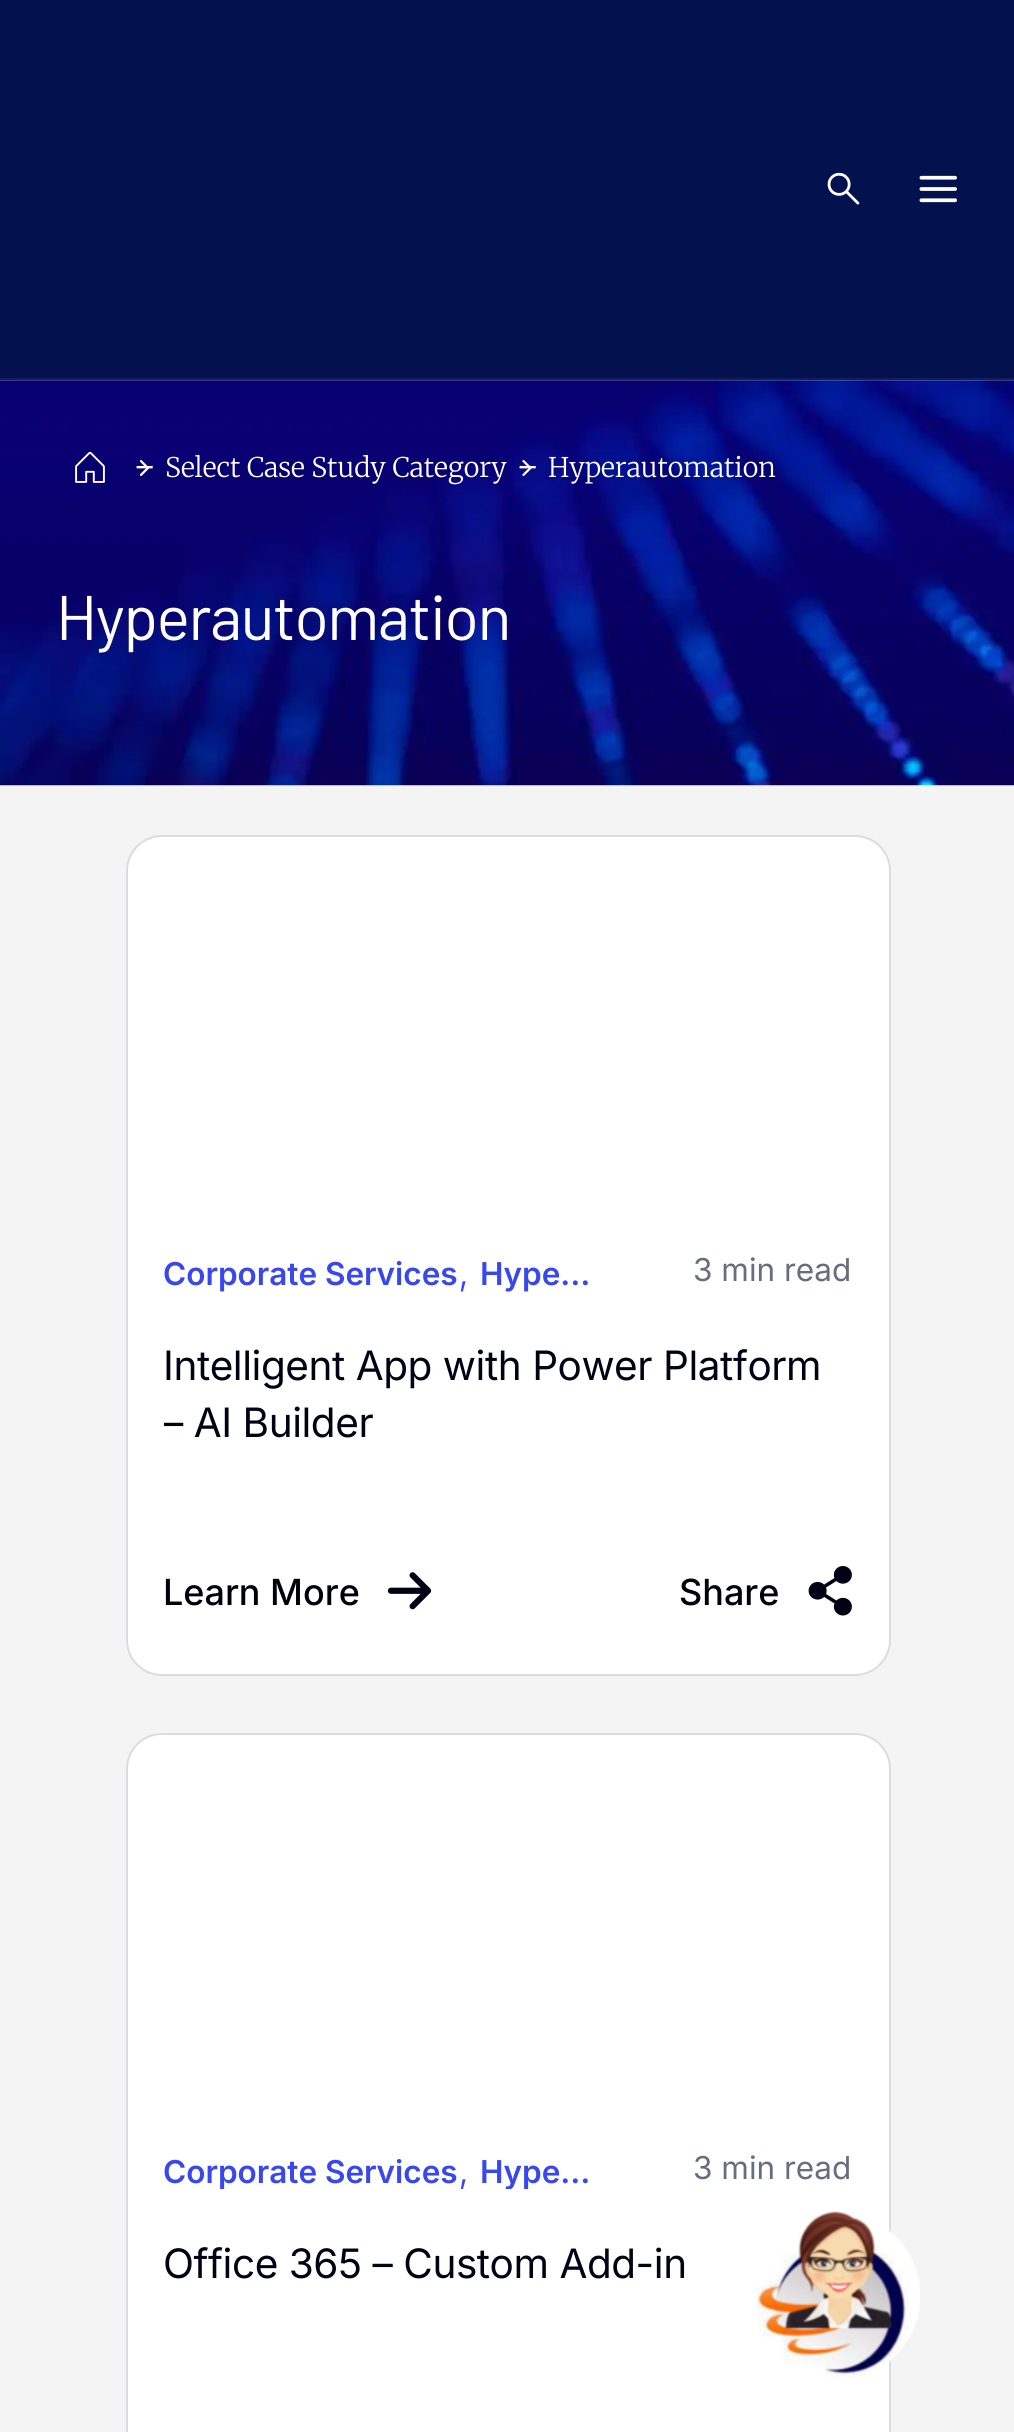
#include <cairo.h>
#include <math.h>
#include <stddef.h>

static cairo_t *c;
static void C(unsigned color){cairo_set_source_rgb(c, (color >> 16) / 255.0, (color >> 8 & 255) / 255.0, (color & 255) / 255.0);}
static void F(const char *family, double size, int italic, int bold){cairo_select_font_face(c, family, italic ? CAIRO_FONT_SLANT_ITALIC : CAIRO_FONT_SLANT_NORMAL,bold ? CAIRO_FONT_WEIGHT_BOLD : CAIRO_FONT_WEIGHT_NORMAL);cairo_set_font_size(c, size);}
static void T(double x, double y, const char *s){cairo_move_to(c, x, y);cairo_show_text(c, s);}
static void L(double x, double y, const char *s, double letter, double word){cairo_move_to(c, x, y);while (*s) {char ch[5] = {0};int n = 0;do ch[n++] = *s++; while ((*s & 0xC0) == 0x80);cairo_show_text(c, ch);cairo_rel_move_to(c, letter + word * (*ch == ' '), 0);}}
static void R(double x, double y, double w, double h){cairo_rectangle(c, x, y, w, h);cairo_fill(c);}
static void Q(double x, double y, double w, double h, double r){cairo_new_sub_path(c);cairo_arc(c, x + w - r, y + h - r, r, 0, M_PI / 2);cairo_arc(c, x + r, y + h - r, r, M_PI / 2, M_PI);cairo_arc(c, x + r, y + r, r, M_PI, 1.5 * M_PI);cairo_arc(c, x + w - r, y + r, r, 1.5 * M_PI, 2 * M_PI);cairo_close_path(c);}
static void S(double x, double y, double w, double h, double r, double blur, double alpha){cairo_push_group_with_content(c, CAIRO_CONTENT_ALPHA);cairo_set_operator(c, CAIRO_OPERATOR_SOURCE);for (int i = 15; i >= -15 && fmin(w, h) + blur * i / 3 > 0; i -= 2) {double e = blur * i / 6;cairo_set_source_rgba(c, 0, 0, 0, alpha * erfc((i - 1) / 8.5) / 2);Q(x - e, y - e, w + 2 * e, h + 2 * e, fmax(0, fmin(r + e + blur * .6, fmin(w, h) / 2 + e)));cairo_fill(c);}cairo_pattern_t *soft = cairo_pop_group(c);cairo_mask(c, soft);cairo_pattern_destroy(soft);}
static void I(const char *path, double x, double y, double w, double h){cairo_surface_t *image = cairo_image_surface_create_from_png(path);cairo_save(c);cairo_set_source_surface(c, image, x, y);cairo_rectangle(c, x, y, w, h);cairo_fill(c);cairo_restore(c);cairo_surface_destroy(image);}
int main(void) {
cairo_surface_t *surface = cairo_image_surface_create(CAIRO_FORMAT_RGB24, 1014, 2432);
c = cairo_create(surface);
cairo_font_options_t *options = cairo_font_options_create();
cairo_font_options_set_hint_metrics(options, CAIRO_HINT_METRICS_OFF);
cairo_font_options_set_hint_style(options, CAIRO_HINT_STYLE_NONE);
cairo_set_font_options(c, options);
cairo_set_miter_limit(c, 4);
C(0xf4f4f5);
cairo_paint(c);
I("3.png",0,380,1014,406);
I("4.png",75,451,30,32);
I("5.png",139,460,10,16);
I("6.png",522,460,10,16);
C(0x000000);
S(0,9,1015,380,0,40.5,.15);
C(0x03114e);
R(0,0,1014,378);
C(0x111e58);
R(0,378,1014,2);
I("1.png",827,172,33,33);
I("2.png",919,175,38,28);
F("Merriweather Light",40,0,0);
C(0xffffff);
T(133,480,"-");
F("Merriweather Light",27,0,0);
T(165,477,"Select Case Study Category");
F("Merriweather Light",40,0,0);
T(516,480,"-");
F("Merriweather Light",27,0,0);
T(548,477,"Hyperautomation");
F("Barlow",63,0,0);
L(56,640,"Hyperautomation",-1.5,0);
Q(126,835,765,841,36);
cairo_fill(c);
Q(127,836,763,839,35);
cairo_set_source_rgba(c,0.4,0.427,0.502,0.24);
cairo_stroke(c);
F("Inter SemiBold",31.5,0,0);
C(0x3847ef);
T(163,1285,"Corporate Services");
F("Inter Light",40,0,0);
T(458,1285,",");
F("Inter SemiBold",31.5,0,0);
T(480,1285,"Hype…");
F("Inter",31.5,0,0);
C(0x666d80);
T(693,1281,"3 min read");
F("Inter",40.5,0,0);
C(0x010314);
L(163,1380,"Intelligent App with Power Platform",-.45,0);
cairo_save(c);
cairo_rectangle(c,164,1339,689,112);
cairo_clip(c);
L(163,1437,"– AI Builder",-.45,0);
cairo_restore(c);
F("Inter Medium",36,0,0);
C(0x00010d);
T(163,1605,"Learn More");
I("7.png",387,1572,45,38);
T(679,1605,"Share");
I("8.png",808,1566,44,50);
C(0xffffff);
Q(126,1733,765,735,36);
cairo_fill(c);
Q(127,1734,763,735,35);
cairo_set_source_rgba(c,0.4,0.427,0.502,0.24);
cairo_stroke(c);
cairo_save(c);
cairo_rectangle(c,164,2147,432,42);
cairo_clip(c);
F("Inter SemiBold",31.5,0,0);
C(0x3847ef);
T(163,2183,"Corporate Services");
F("Inter Light",40,0,0);
T(458,2183,",");
F("Inter SemiBold",31.5,0,0);
T(480,2183,"Hype…");
cairo_restore(c);
F("Inter",31.5,0,0);
C(0x666d80);
T(693,2179,"3 min read");
F("Inter",40.5,0,0);
C(0x010314);
L(163,2278,"Office 365 – Custom Add-in",-.45,0);
I("9.png",756,2211,164,167);
cairo_surface_write_to_png(surface, "o.png");
cairo_font_options_destroy(options);
cairo_destroy(c);
cairo_surface_destroy(surface);
return 0;
}
